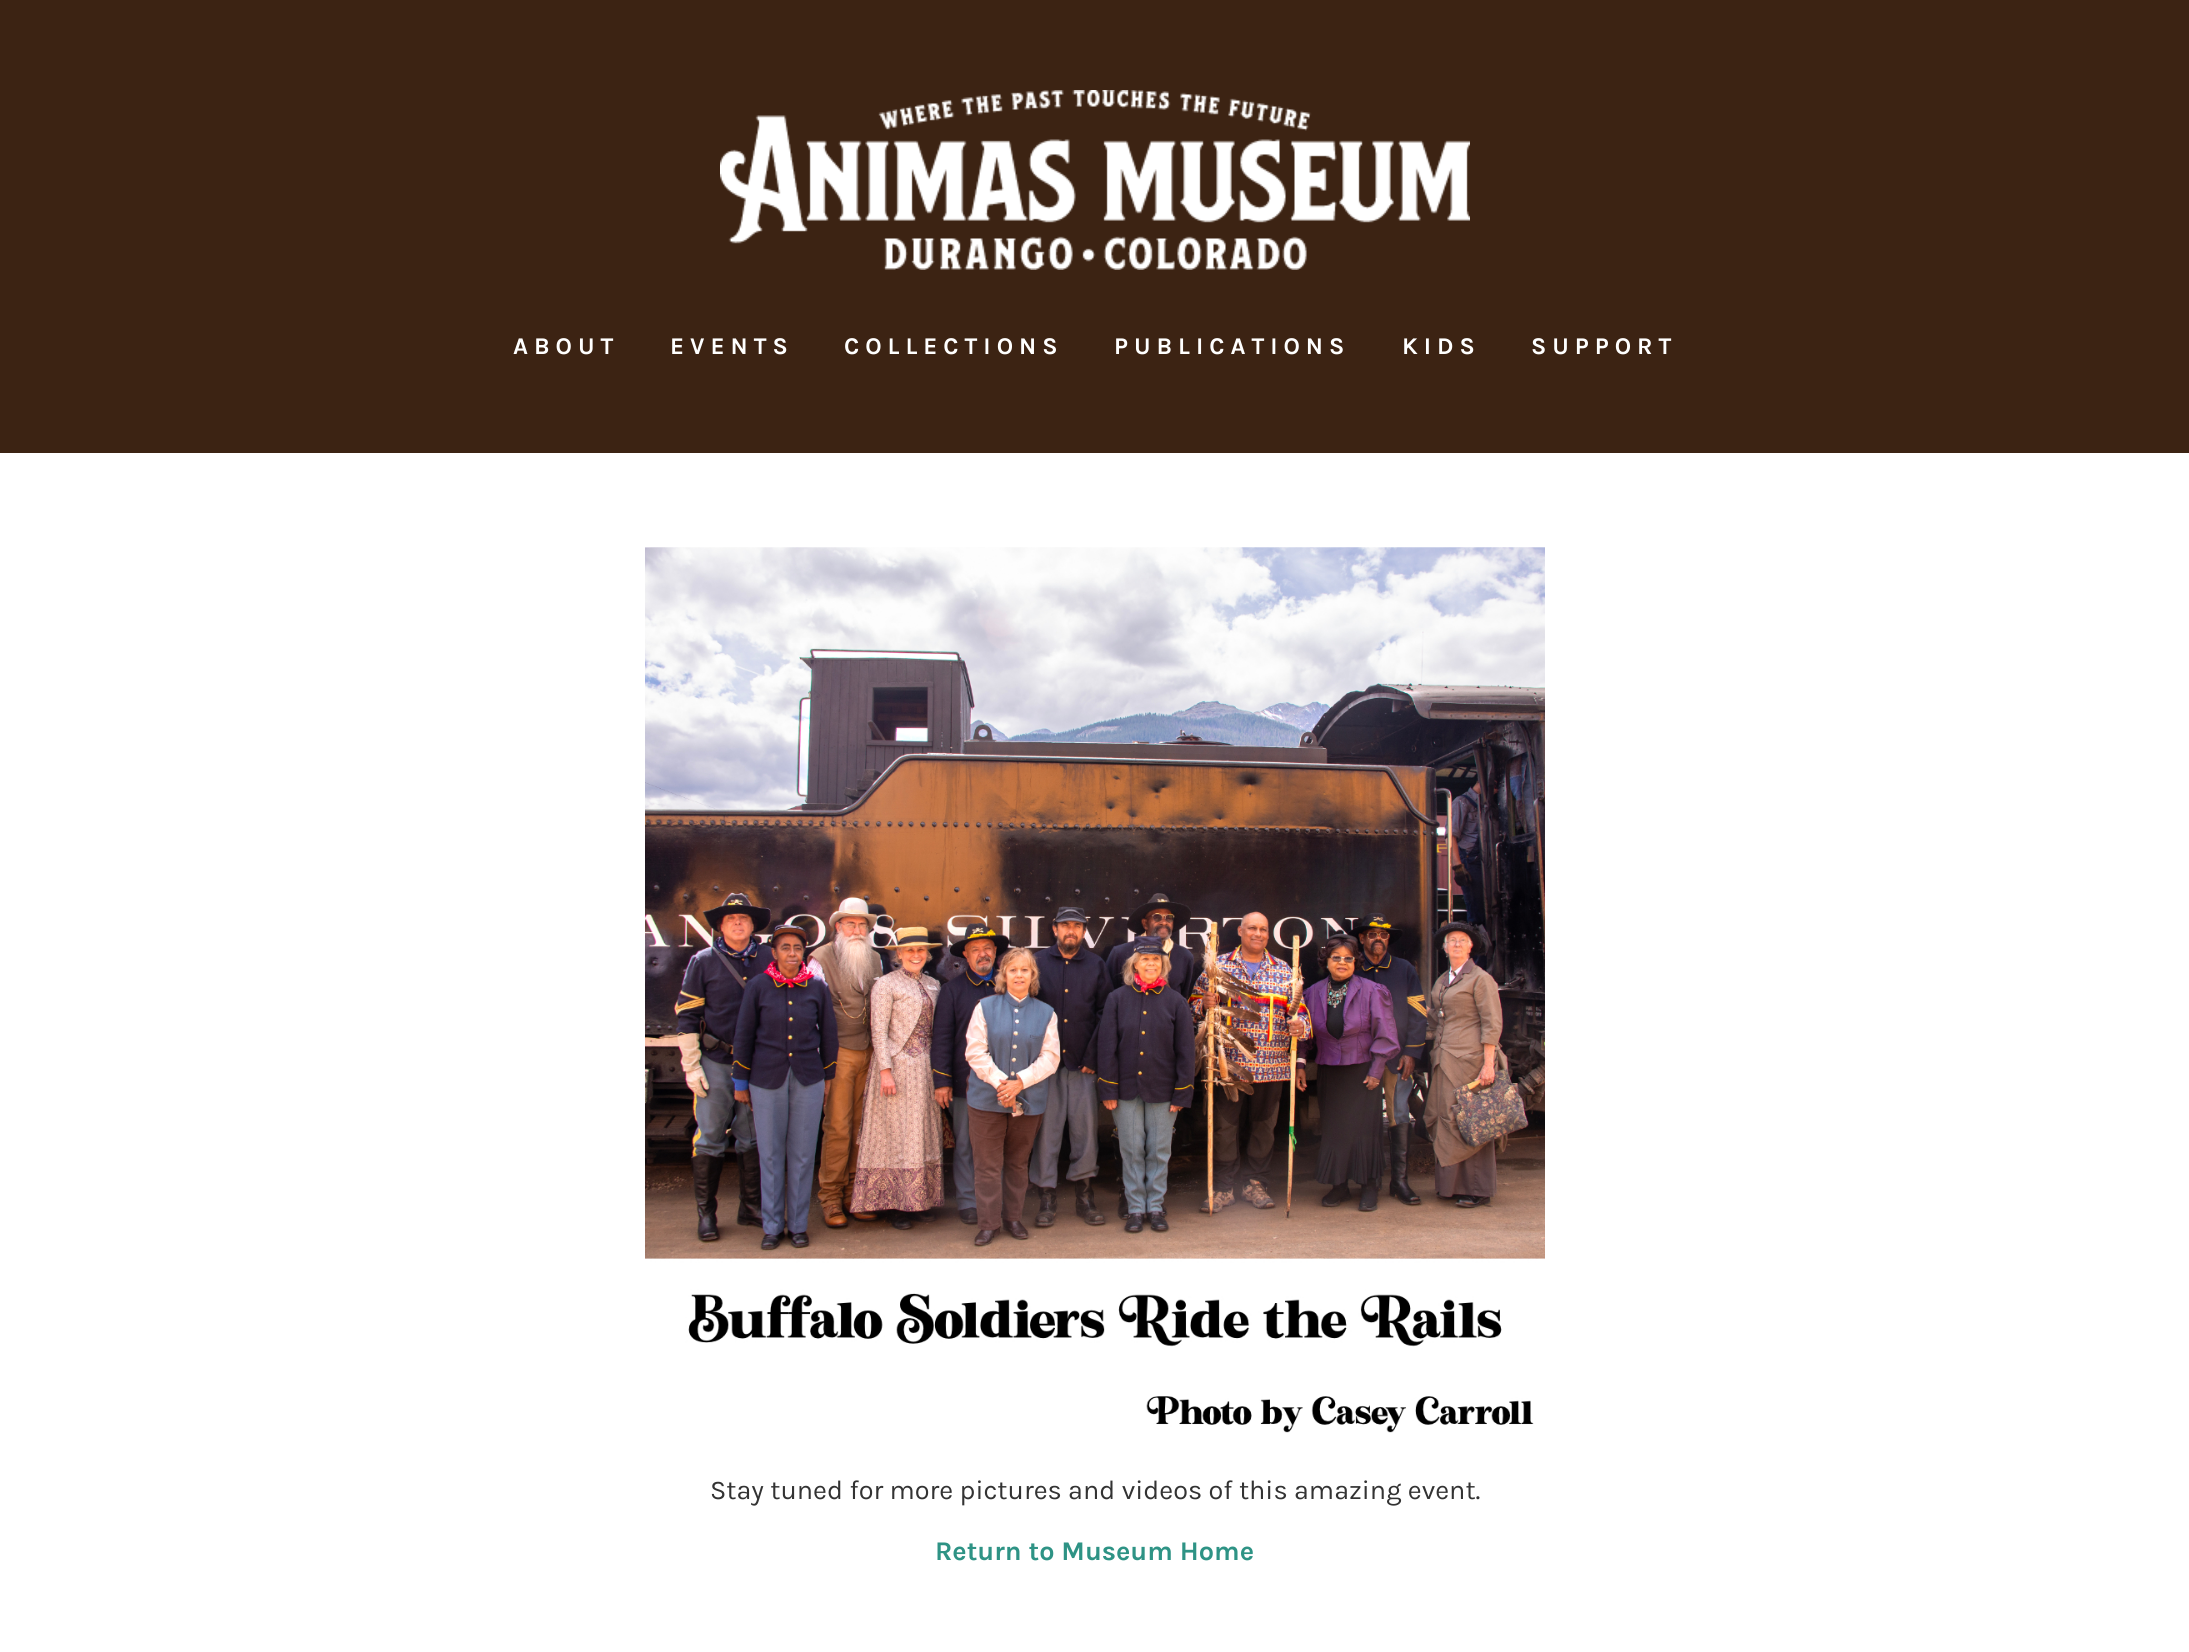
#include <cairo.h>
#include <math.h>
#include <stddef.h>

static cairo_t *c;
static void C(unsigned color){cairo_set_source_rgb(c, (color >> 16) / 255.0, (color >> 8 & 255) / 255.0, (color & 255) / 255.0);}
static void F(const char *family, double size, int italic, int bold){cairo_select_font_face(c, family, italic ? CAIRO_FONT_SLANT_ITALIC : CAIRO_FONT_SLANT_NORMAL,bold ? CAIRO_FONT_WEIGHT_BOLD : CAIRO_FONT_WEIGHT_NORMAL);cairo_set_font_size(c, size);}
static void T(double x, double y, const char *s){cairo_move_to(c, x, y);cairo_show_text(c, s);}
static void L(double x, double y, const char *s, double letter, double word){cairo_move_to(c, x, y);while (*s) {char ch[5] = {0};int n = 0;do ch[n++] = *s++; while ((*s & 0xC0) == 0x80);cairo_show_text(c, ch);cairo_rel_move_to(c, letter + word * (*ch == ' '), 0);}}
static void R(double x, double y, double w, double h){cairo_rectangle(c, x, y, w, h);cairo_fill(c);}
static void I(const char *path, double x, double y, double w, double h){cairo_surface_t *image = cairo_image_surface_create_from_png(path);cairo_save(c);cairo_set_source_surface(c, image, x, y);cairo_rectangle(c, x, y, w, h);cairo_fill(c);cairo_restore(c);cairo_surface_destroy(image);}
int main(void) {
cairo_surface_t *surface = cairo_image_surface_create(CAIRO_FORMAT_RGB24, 2189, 1652);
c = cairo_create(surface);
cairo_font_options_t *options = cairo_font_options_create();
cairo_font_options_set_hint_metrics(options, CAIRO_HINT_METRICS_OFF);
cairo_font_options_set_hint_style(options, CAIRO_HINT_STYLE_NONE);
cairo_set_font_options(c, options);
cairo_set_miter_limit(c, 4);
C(0xffffff);
cairo_paint(c);
C(0x3c2313);
R(0,0,2189,453);
I("1.png",720,90,750,180);
F("Karla",24,0,1);
C(0xffffff);
L(513,354,"ABOUT",6,0);
L(670,354,"EVENTS",6,0);
L(844,354,"COLLECTIONS",6,0);
L(1114,354,"PUBLICATIONS",6,0);
L(1402,354,"KIDS",6,0);
L(1531,354,"SUPPORT",6,0);
I("2.png",645,547,900,886);
F("Karla",27,0,0);
C(0x333333);
T(710,1499,"Stay tuned for more pictures and videos of this amazing event.");
F("Karla",27,0,1);
C(0x2e9385);
T(935,1560,"Return to Museum Home");
cairo_surface_write_to_png(surface, "o.png");
cairo_font_options_destroy(options);
cairo_destroy(c);
cairo_surface_destroy(surface);
return 0;
}
